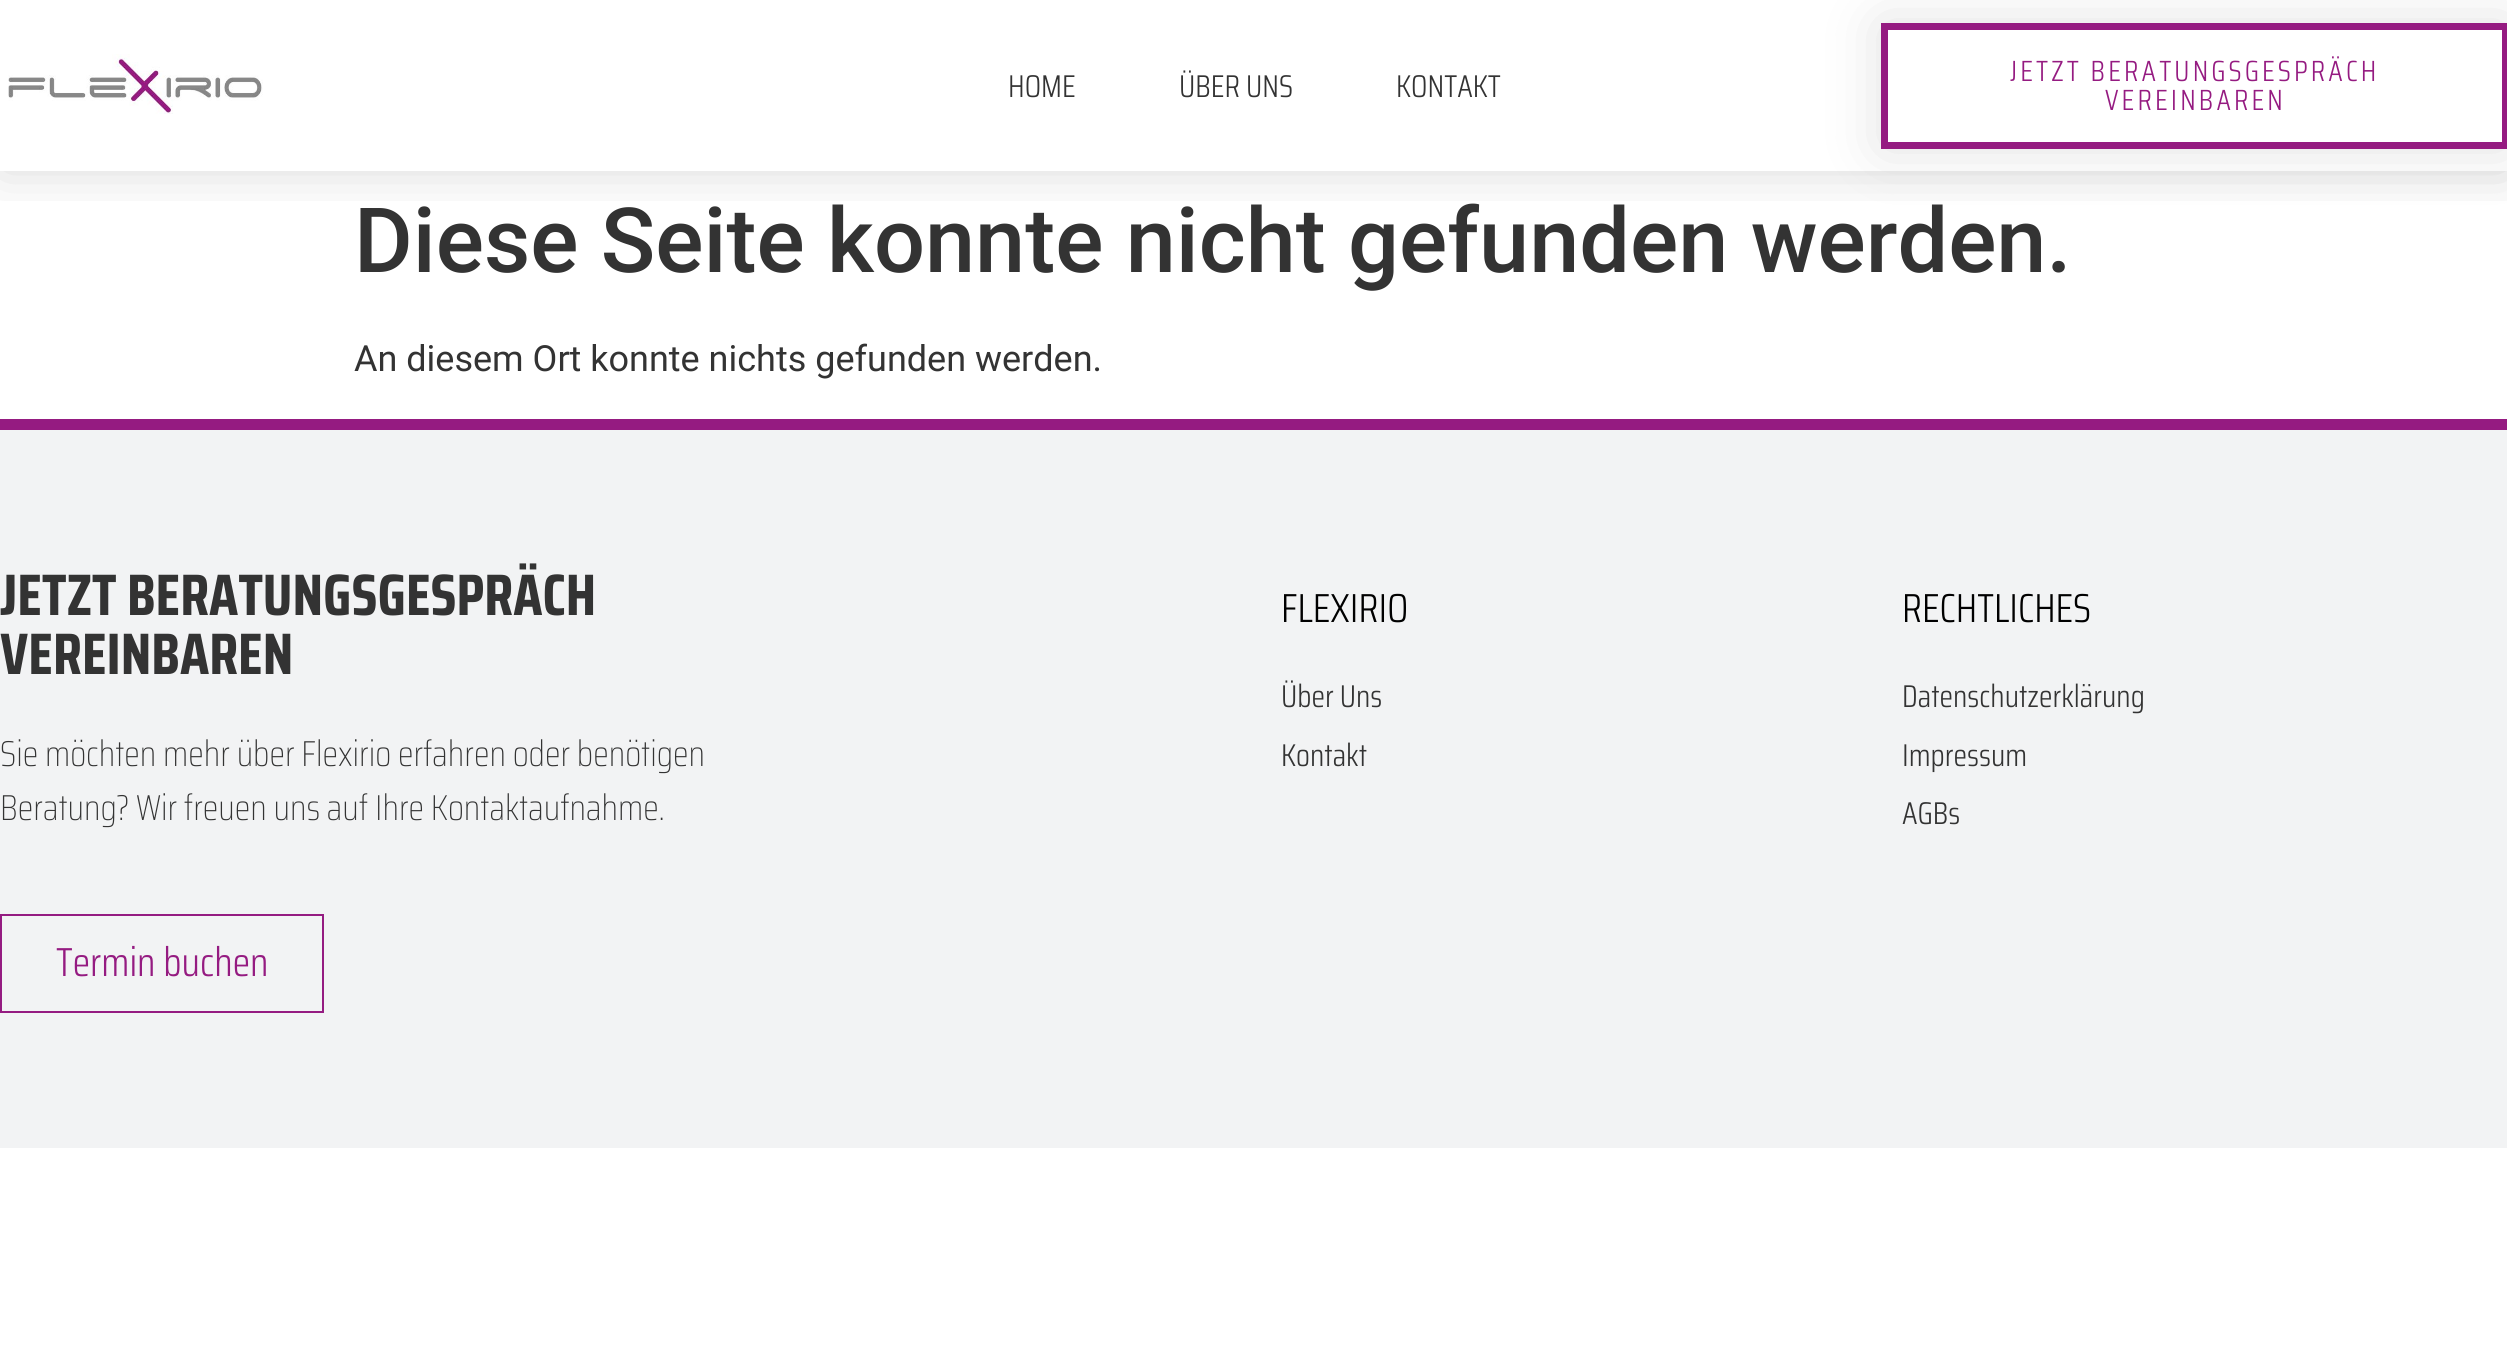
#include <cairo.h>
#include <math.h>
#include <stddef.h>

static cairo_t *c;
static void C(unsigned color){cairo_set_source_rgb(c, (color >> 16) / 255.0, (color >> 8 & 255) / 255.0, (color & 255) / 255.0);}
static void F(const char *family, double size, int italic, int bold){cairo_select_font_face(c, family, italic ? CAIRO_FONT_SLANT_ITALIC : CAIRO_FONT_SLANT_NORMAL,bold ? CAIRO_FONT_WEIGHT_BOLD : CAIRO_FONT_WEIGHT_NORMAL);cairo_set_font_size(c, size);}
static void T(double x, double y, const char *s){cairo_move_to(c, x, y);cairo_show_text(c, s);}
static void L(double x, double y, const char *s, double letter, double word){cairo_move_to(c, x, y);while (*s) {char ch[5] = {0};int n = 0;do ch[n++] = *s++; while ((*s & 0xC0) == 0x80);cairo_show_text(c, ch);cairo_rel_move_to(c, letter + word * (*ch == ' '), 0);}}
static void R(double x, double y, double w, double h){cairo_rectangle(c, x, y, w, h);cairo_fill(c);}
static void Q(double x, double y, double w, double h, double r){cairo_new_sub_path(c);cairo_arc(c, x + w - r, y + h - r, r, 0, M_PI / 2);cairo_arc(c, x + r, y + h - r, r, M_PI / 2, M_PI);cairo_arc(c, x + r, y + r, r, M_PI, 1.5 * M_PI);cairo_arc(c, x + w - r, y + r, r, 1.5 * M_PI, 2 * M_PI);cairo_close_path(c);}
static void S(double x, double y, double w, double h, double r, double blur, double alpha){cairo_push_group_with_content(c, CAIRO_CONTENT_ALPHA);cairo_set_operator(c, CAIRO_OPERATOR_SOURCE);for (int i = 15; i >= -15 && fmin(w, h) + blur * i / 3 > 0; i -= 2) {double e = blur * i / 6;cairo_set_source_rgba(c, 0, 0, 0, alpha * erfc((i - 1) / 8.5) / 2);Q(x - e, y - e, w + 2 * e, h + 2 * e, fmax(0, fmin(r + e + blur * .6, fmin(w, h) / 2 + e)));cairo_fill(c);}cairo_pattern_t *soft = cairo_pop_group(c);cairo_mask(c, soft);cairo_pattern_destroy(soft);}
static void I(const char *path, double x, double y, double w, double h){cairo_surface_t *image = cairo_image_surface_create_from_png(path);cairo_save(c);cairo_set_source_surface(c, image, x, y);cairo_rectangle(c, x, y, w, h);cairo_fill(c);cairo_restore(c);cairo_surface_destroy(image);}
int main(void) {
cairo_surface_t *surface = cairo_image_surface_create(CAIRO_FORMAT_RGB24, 2507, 1371);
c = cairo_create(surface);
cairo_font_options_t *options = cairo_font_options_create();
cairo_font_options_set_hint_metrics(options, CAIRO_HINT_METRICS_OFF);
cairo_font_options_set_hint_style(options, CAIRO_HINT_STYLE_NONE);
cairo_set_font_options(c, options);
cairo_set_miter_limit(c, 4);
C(0xffffff);
cairo_paint(c);
cairo_save(c);
cairo_rectangle(c,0,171,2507,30);
cairo_clip(c);
C(0x000000);
S(0,0,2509,171,0,27,.15);
cairo_restore(c);
I("1.png",8,54,255,60);
F("Saira Condensed Light",31.5,0,0);
C(0x333333);
T(1008,97,"HOME");
T(1179,97,"ÜBER UNS");
T(1396,97,"KONTAKT");
C(0x000000);
S(1881,23,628,126,0,30.5,.12);
C(0xffffff);
cairo_rectangle(c,1884.5,26.5,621,119);
cairo_fill_preserve(c);
C(0x951b81);
cairo_set_line_width(c,7);
cairo_stroke(c);
F("Saira Condensed Light",29.25,0,0);
L(2010,81,"JETZT BERATUNGSGESPRÄCH",3.15,0);
L(2105,110,"VEREINBAREN",3.15,0);
F("Roboto Medium",90,0,0);
C(0x333333);
T(354,272,"Diese Seite konnte nicht gefunden werden.");
F("Roboto",36,0,0);
T(354,371,"An diesem Ort konnte nichts gefunden werden.");
C(0xf2f3f4);
R(0,430,2507,718);
C(0x951b81);
R(0,419,2507,11);
F("Saira Condensed",58.5,0,1);
C(0x333333);
T(0,615,"JETZT BERATUNGSGESPRÄCH");
T(0,674,"VEREINBAREN");
F("Saira Condensed Thin",36,0,0);
T(0,766,"Sie möchten mehr über Flexirio erfahren oder benötigen");
T(0,820,"Beratung? Wir freuen uns auf Ihre Kontaktaufnahme.");
cairo_rectangle(c,1,915,322,97);
C(0x951b81);
cairo_set_line_width(c,2);
cairo_stroke(c);
F("Saira Condensed Light",40.5,0,0);
T(56,976,"Termin buchen");
C(0x000000);
T(1281,622,"FLEXIRIO");
F("Saira Condensed Light",31.5,0,0);
C(0x333333);
T(1281,707,"Über Uns");
T(1281,766,"Kontakt");
F("Saira Condensed Light",40.5,0,0);
C(0x000000);
T(1902,622,"RECHTLICHES");
F("Saira Condensed Light",31.5,0,0);
C(0x333333);
T(1902,707,"Datenschutzerklärung");
T(1902,766,"Impressum");
T(1902,824,"AGBs");
cairo_surface_write_to_png(surface, "o.png");
cairo_font_options_destroy(options);
cairo_destroy(c);
cairo_surface_destroy(surface);
return 0;
}
